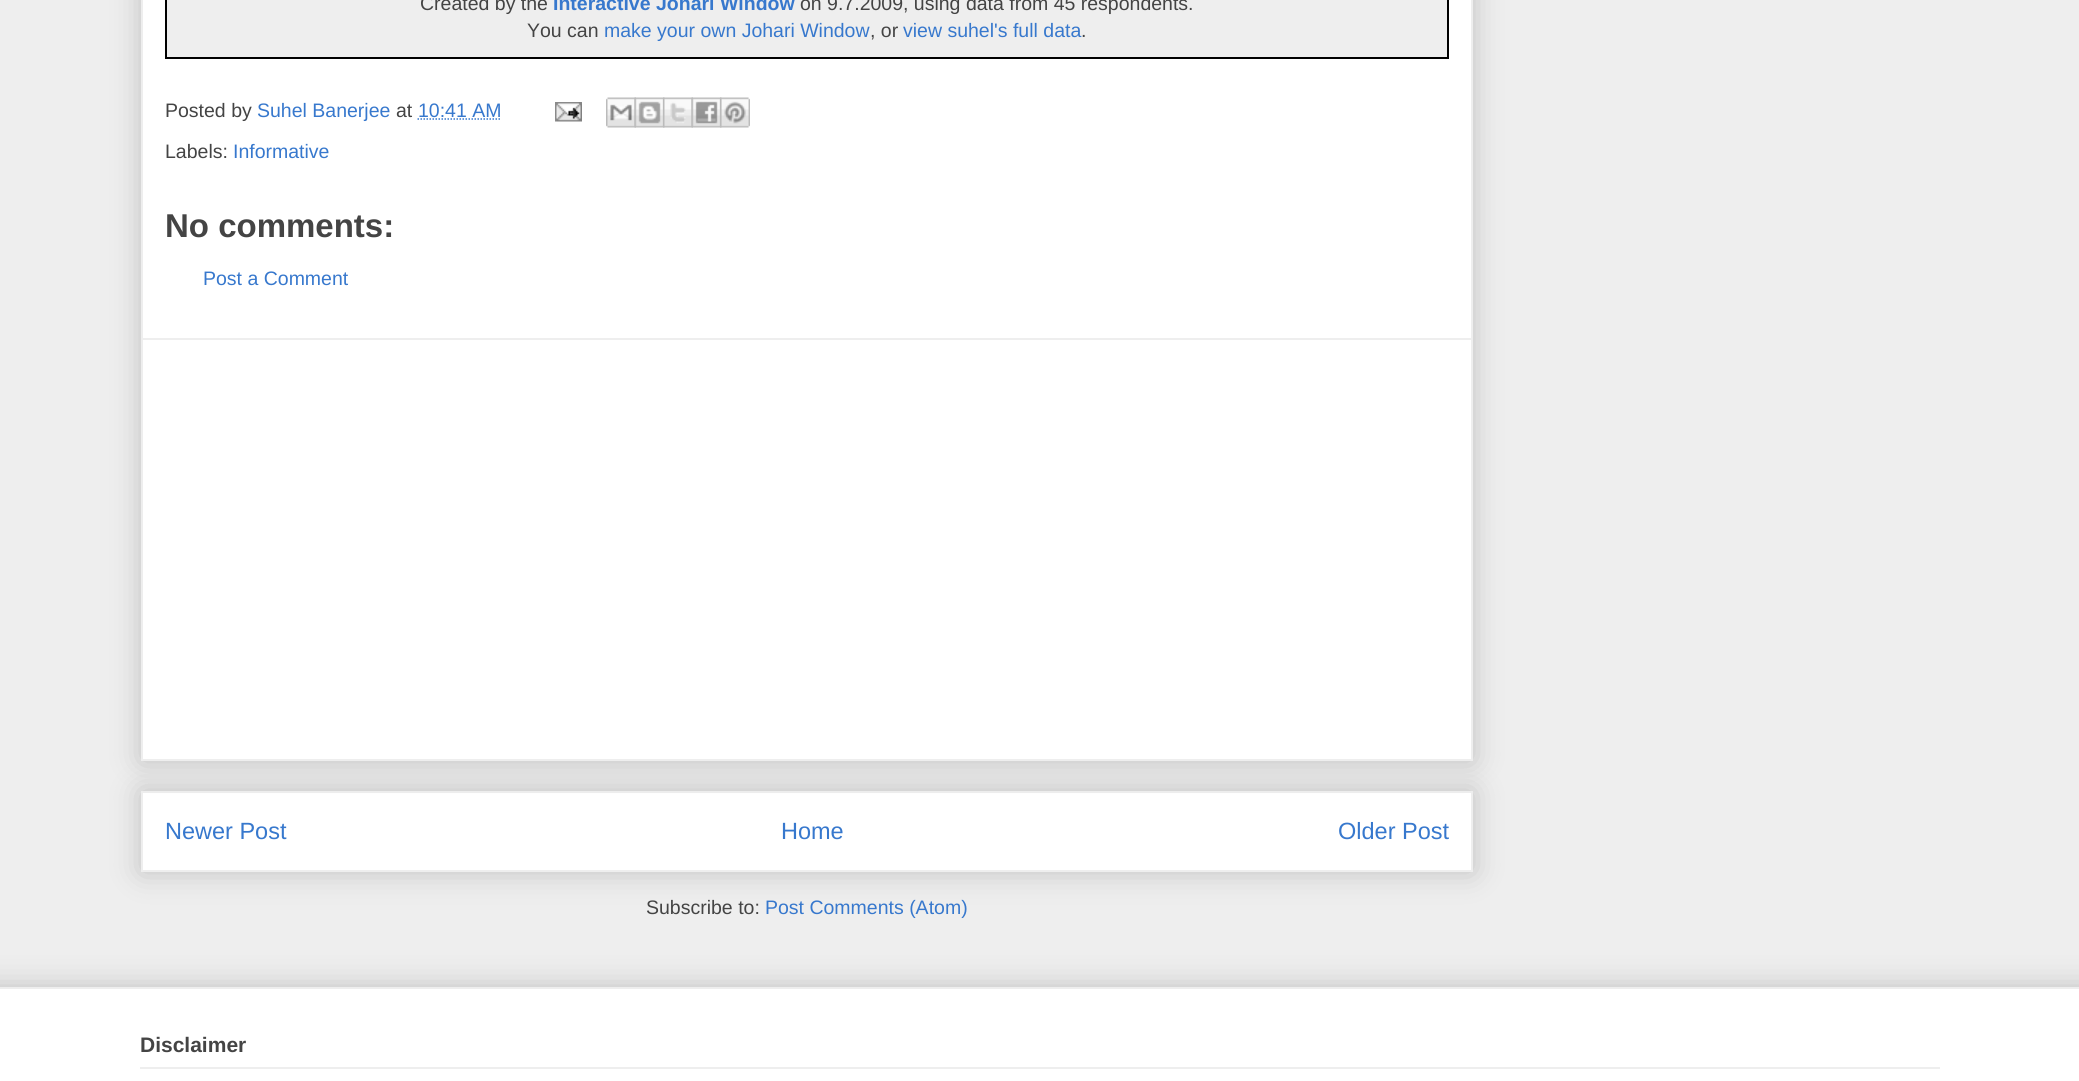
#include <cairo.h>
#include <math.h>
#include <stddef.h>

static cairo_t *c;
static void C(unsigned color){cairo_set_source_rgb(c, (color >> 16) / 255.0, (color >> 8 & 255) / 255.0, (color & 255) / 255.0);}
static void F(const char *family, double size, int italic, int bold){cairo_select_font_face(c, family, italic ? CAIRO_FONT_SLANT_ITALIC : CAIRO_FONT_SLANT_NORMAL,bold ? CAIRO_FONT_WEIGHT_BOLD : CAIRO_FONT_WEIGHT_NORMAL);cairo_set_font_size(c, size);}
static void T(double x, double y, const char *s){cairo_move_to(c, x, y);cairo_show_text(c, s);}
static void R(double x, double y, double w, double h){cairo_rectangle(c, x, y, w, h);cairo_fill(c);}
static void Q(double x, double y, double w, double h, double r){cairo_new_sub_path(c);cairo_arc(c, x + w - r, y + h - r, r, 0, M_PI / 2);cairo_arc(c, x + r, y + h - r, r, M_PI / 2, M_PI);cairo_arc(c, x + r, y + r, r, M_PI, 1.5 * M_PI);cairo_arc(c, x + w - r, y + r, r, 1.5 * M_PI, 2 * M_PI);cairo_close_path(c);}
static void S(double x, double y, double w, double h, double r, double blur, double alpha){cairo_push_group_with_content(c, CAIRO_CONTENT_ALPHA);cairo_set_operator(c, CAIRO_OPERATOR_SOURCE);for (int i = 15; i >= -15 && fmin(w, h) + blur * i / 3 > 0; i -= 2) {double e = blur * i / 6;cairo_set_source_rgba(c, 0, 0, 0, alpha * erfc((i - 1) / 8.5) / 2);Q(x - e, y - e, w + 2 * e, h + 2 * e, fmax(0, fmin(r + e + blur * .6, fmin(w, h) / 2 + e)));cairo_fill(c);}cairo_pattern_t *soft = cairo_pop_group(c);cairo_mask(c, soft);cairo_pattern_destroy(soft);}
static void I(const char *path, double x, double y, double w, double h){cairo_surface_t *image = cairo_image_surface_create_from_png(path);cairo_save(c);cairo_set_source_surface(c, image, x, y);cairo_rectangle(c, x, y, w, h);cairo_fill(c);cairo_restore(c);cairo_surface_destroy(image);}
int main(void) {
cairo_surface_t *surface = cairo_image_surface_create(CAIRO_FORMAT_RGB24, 2079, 1081);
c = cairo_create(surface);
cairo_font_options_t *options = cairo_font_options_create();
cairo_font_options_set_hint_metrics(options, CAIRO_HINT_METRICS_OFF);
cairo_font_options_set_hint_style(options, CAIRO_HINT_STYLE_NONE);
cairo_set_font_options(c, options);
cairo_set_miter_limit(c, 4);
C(0xeeeeee);
cairo_paint(c);
C(0x000000);
S(141,791,1332,81,0,15,.2);
C(0xffffff);
cairo_rectangle(c,142,792,1330,79);
cairo_fill_preserve(c);
C(0xeeeeee);
cairo_stroke(c);
C(0x000000);
S(141,-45,1332,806,0,15,.2);
C(0xffffff);
cairo_rectangle(c,142,-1,1330,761);
cairo_fill_preserve(c);
C(0xeeeeee);
cairo_stroke(c);
cairo_rectangle(c,166,-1,1282,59);
cairo_fill_preserve(c);
C(0x000000);
cairo_stroke(c);
F("Liberation Sans",19.5,0,0);
C(0x444444);
T(420,10,"Created by the");
F("Liberation Sans",19.5,0,1);
C(0x3778cd);
T(553,10,"Interactive Johari Window");
F("Liberation Sans",19.5,0,0);
C(0x444444);
T(800,10,"on 9.7.2009, using data from 45 respondents.");
T(527,37,"You can");
C(0x3778cd);
T(604,37,"make your own Johari Window");
C(0x444444);
T(870,37,", or");
C(0x3778cd);
T(903,37,"view suhel's full data");
C(0x444444);
T(1081,37,".");
T(165,117,"Posted by");
C(0x3778cd);
T(257,117,"Suhel Banerjee");
C(0x444444);
T(396,117,"at");
C(0x3778cd);
T(418,117,"10:41 AM");
cairo_new_path(c);
cairo_move_to(c,417.5,119);
cairo_line_to(c,501,119);
cairo_set_line_width(c,1.5);
cairo_set_dash(c,(double[]){1.5,1.5},2,0);
cairo_stroke(c);
I("1.png",555,102,27,20);
I("2.png",606,97,30,31);
I("3.png",634,97,31,31);
I("4.png",663,97,30,31);
I("5.png",691,97,31,31);
I("6.png",720,97,30,31);
C(0x444444);
T(165,158,"Labels:");
C(0x3778cd);
T(233,158,"Informative");
F("Liberation Sans",33,0,1);
C(0x444444);
T(165,237,"No comments:");
F("Liberation Sans",19.5,0,0);
C(0x3778cd);
T(203,285,"Post a Comment");
C(0xeeeeee);
R(143,338,1329,2);
F("Liberation Sans",23.5,0,0);
C(0x3778cd);
T(165,839,"Newer Post");
T(781,839,"Home");
T(1338,839,"Older Post");
F("Liberation Sans",19.5,0,0);
C(0x444444);
T(646,914,"Subscribe to:");
C(0x3778cd);
T(765,914,"Post Comments (Atom)");
C(0x000000);
S(-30,987,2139,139,0,15,.2);
C(0xffffff);
R(0,989,2079,92);
C(0xeeeeee);
R(0,987,2079,2);
F("Liberation Sans",21,0,1);
C(0x444444);
T(140,1052,"Disclaimer");
C(0xeeeeee);
R(140,1067,1800,2);
cairo_surface_write_to_png(surface, "o.png");
cairo_font_options_destroy(options);
cairo_destroy(c);
cairo_surface_destroy(surface);
return 0;
}
